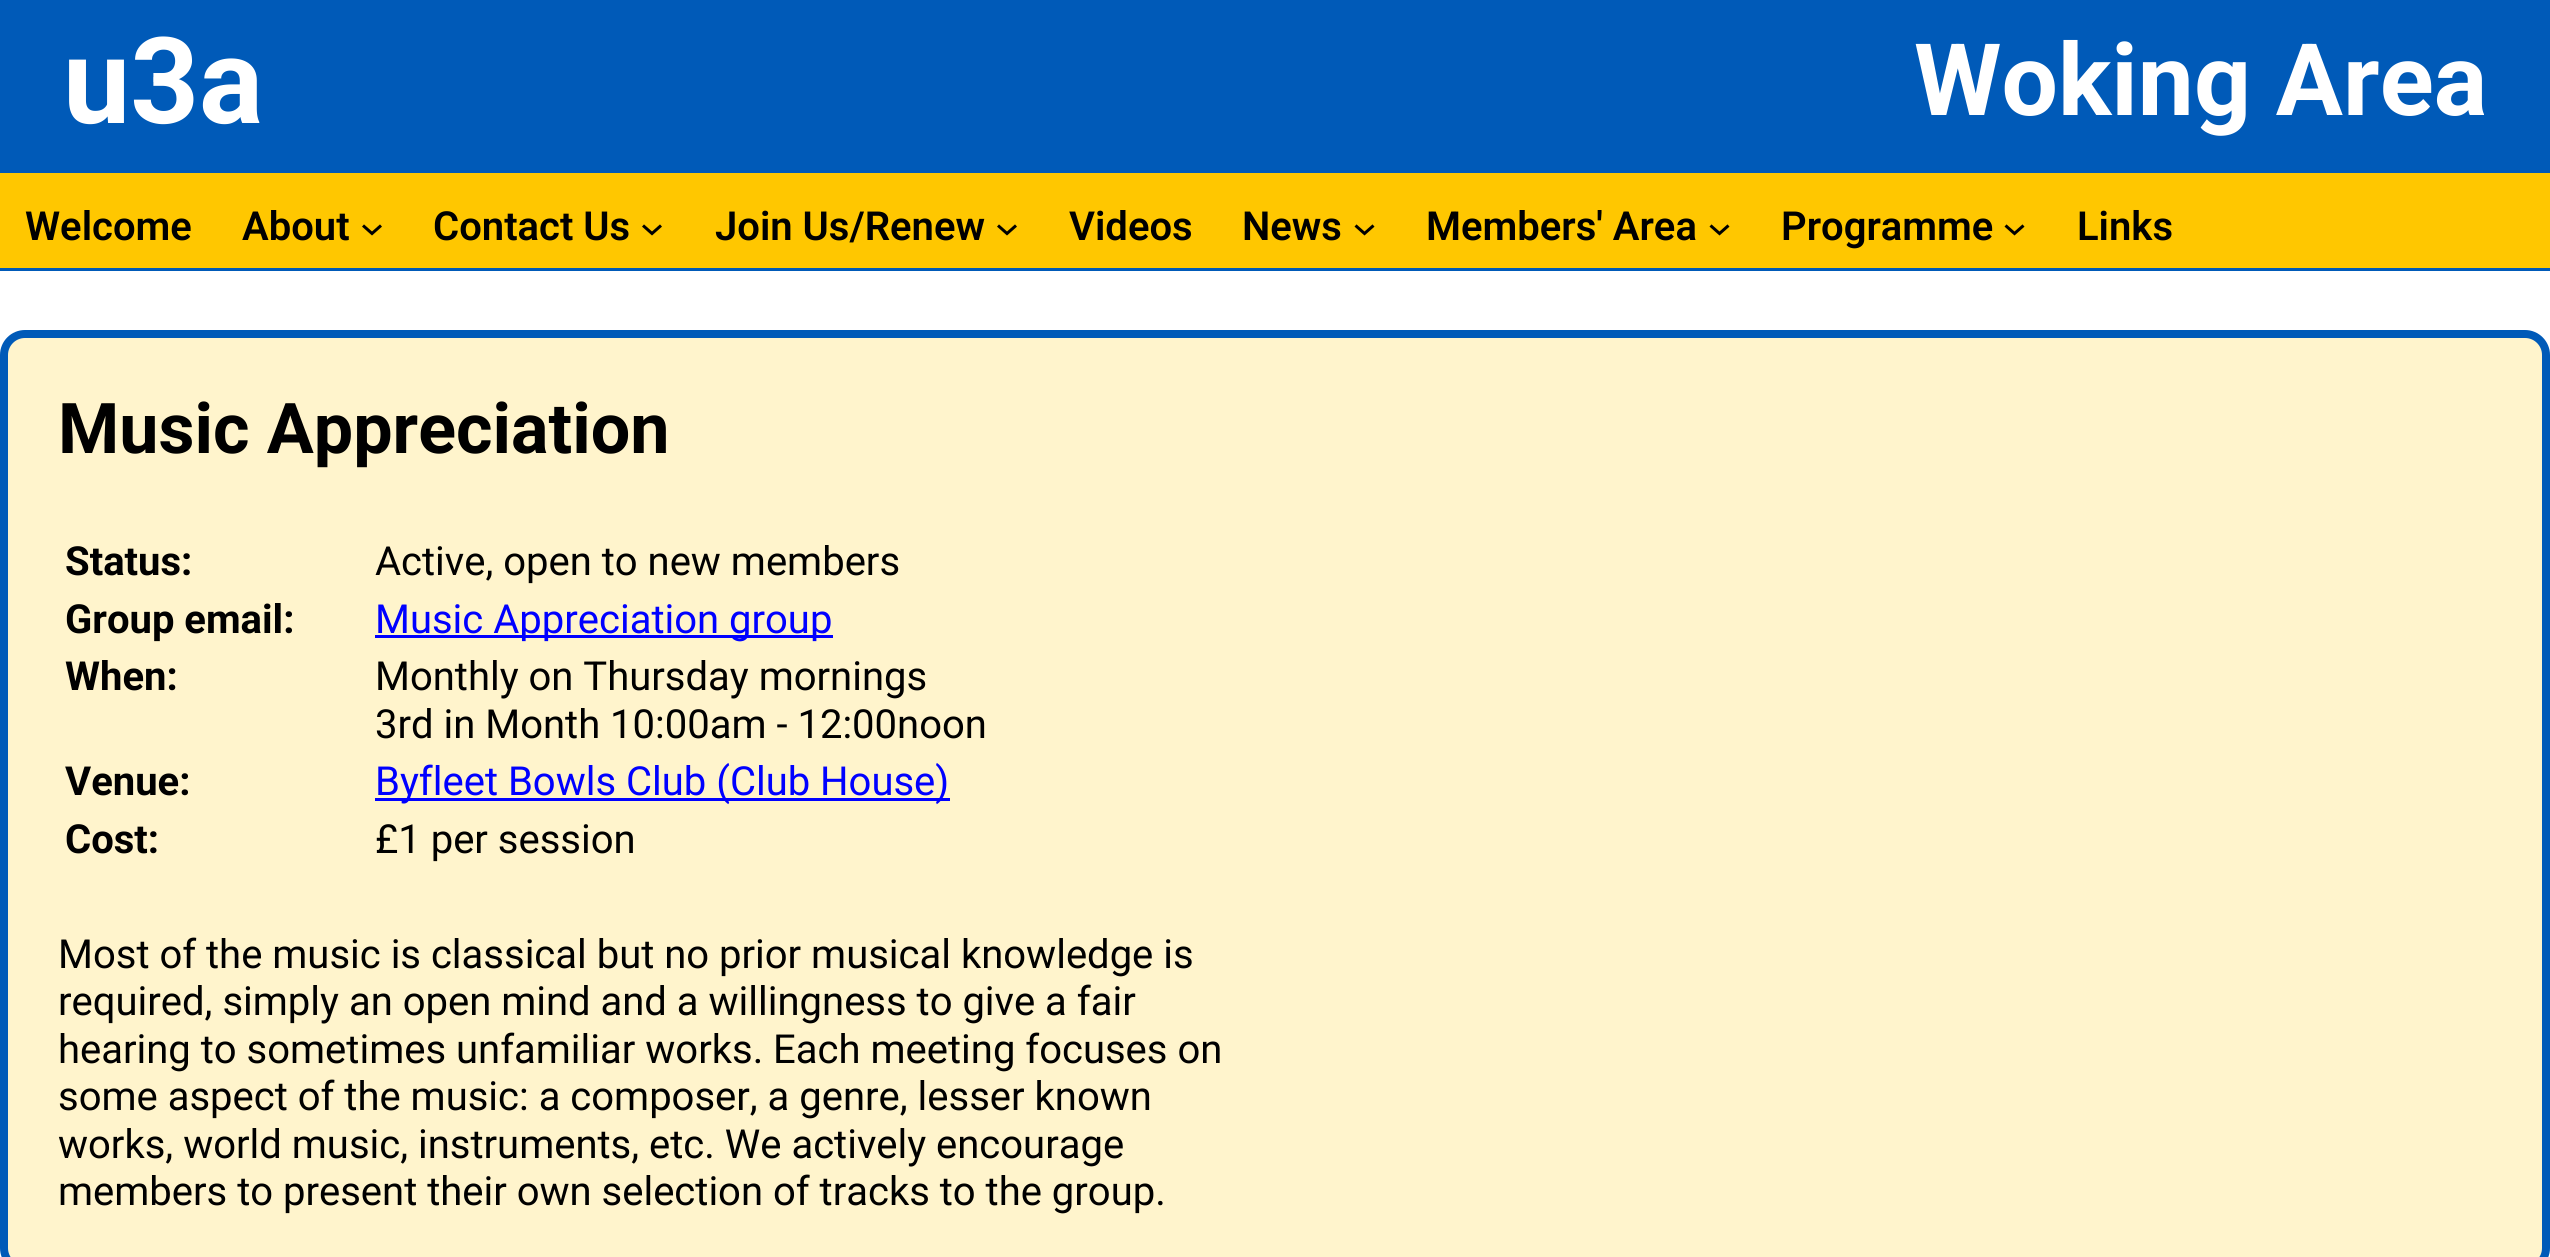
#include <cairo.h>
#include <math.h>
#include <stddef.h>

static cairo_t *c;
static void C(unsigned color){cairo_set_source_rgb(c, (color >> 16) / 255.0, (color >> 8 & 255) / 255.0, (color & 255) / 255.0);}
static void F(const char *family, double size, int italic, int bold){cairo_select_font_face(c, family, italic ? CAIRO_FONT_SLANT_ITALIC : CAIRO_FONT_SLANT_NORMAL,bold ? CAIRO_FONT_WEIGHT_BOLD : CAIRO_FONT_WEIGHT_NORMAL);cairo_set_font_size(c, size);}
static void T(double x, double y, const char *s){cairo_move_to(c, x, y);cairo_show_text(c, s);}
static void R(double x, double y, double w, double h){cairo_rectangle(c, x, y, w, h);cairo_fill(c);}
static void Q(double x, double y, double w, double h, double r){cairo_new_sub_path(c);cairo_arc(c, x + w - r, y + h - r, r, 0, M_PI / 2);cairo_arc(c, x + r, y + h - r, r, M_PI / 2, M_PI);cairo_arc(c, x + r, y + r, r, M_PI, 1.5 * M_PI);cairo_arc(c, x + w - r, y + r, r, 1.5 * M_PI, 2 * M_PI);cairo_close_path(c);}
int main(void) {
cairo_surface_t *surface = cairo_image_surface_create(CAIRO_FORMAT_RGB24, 2550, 1257);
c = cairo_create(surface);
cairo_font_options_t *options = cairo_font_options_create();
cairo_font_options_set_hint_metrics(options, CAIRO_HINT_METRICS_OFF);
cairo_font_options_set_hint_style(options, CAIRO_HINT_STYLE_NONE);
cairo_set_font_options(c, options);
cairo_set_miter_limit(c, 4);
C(0xffffff);
cairo_paint(c);
C(0x005ab8);
R(0,0,2550,173);
F("Roboto",120,0,1);
C(0xffffff);
T(63,123,"u3a");
F("Roboto",100,0,1);
T(1914,115,"Woking Area");
C(0xffc700);
R(0,173,2550,95);
C(0x005ab8);
R(0,268,2550,3);
F("Roboto SemiBold",40,0,0);
C(0x000000);
T(25,240,"Welcome");
T(242,240,"About");
cairo_new_path(c);
cairo_move_to(c,363,225.5);
cairo_line_to(c,372,233.5);
cairo_line_to(c,381,225.5);
cairo_set_line_width(c,3);
cairo_stroke(c);
T(433,240,"Contact Us");
cairo_new_path(c);
cairo_move_to(c,643,225.5);
cairo_line_to(c,652,233.5);
cairo_line_to(c,661,225.5);
cairo_stroke(c);
T(715,240,"Join Us/Renew");
cairo_new_path(c);
cairo_move_to(c,998,225.5);
cairo_line_to(c,1007,233.5);
cairo_line_to(c,1016,225.5);
cairo_stroke(c);
T(1069,240,"Videos");
T(1242,240,"News");
cairo_new_path(c);
cairo_move_to(c,1355.5,225.5);
cairo_line_to(c,1364.5,233.5);
cairo_line_to(c,1373.5,225.5);
cairo_stroke(c);
T(1426,240,"Members' Area");
cairo_new_path(c);
cairo_move_to(c,1710.5,225.5);
cairo_line_to(c,1719.5,233.5);
cairo_line_to(c,1728.5,225.5);
cairo_stroke(c);
T(1781,240,"Programme");
cairo_new_path(c);
cairo_move_to(c,2005.5,225.5);
cairo_line_to(c,2014.5,233.5);
cairo_line_to(c,2023.5,225.5);
cairo_stroke(c);
T(2077,240,"Links");
C(0xfff4cc);
Q(4,334,2542,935,21);
cairo_fill_preserve(c);
C(0x005ab8);
cairo_set_line_width(c,8);
cairo_stroke(c);
F("Roboto",70,0,1);
C(0x000000);
T(58,453,"Music Appreciation");
F("Roboto",40,0,1);
T(65,575,"Status:");
F("Roboto",40,0,0);
T(375,575,"Active, open to new members");
F("Roboto",40,0,1);
T(65,633,"Group email:");
C(0x0000ff);
R(375,635,458,3);
F("Roboto",40,0,0);
T(375,633,"Music Appreciation group");
F("Roboto",40,0,1);
C(0x000000);
T(65,690,"When:");
F("Roboto",40,0,0);
T(375,690,"Monthly on Thursday mornings");
T(375,738,"3rd in Month 10:00am - 12:00noon");
F("Roboto",40,0,1);
T(65,795,"Venue:");
C(0x0000ff);
R(375,798,575,3);
F("Roboto",40,0,0);
T(375,795,"Byfleet Bowls Club (Club House)");
F("Roboto",40,0,1);
C(0x000000);
T(65,853,"Cost:");
F("Roboto",40,0,0);
T(375,853,"£1 per session");
T(58,968,"Most of the music is classical but no prior musical knowledge is");
T(58,1015,"required, simply an open mind and a willingness to give a fair");
T(58,1063,"hearing to sometimes unfamiliar works. Each meeting focuses on");
T(58,1110,"some aspect of the music: a composer, a genre, lesser known");
T(58,1158,"works, world music, instruments, etc. We actively encourage");
T(58,1205,"members to present their own selection of tracks to the group.");
cairo_surface_write_to_png(surface, "o.png");
cairo_font_options_destroy(options);
cairo_destroy(c);
cairo_surface_destroy(surface);
return 0;
}
